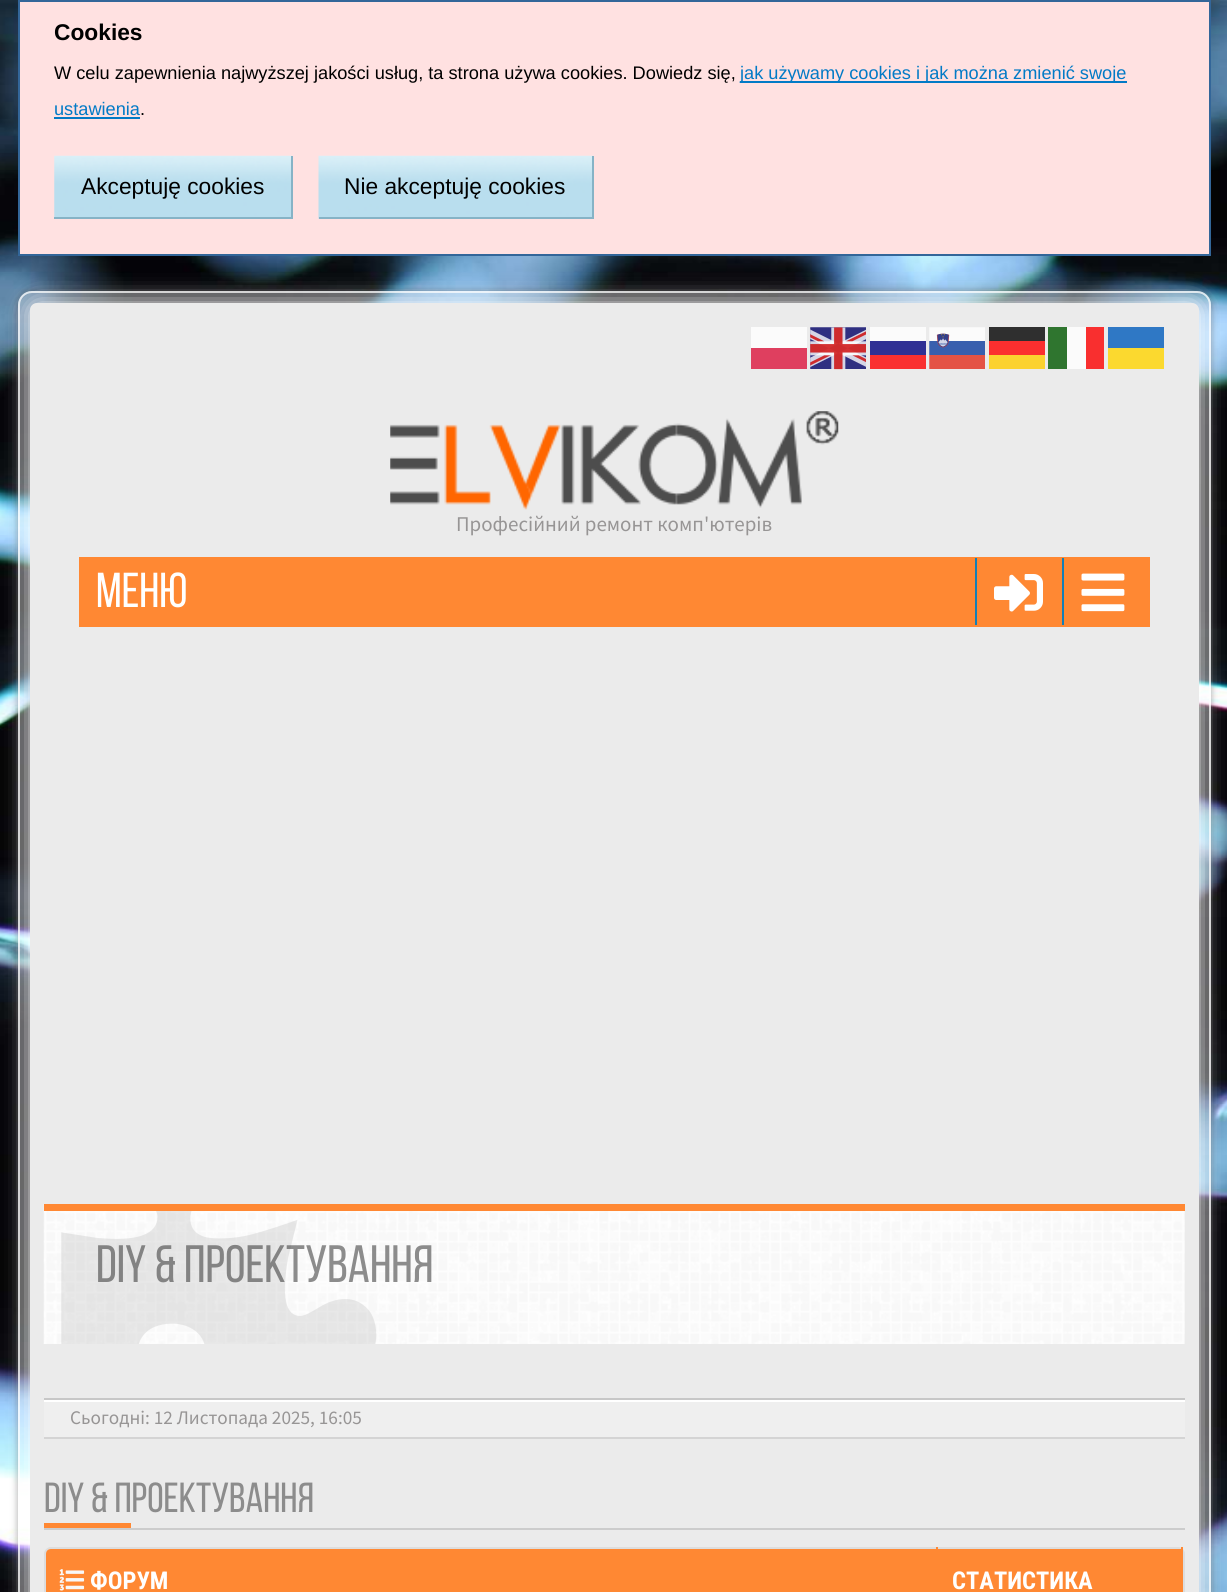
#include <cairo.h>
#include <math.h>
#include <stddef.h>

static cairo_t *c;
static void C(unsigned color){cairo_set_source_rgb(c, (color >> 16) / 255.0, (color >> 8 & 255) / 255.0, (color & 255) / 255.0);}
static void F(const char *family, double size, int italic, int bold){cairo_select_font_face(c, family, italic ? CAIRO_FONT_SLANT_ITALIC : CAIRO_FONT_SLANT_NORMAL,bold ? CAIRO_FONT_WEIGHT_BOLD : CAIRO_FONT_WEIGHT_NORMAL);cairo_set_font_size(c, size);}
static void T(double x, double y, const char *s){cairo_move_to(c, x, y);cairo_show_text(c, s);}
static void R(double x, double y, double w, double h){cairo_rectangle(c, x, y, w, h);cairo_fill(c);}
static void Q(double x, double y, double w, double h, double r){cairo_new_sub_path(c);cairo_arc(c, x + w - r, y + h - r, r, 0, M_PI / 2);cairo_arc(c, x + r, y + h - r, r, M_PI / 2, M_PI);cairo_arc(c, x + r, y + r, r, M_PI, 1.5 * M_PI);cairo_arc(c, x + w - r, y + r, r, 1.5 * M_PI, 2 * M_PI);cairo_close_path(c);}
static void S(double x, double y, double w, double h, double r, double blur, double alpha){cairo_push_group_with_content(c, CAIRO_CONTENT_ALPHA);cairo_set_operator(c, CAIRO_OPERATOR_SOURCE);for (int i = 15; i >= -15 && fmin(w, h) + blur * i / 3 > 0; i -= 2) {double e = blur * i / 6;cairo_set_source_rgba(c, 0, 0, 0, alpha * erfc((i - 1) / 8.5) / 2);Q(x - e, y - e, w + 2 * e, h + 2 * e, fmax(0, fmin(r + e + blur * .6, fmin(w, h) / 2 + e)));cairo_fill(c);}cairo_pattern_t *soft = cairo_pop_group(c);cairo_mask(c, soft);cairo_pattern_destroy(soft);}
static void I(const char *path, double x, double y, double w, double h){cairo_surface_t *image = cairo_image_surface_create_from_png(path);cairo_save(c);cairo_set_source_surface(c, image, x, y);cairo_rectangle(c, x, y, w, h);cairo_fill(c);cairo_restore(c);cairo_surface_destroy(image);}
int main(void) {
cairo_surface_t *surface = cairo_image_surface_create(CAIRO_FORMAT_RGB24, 1227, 1592);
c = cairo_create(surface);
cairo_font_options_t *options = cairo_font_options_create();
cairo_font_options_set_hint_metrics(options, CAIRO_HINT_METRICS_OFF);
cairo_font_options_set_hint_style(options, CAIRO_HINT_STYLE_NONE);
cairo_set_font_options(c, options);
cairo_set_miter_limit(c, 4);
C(0xffffff);
cairo_paint(c);
I("1.png",0,0,1227,1592);
C(0xffe1e1);
cairo_rectangle(c,19,1,1191,254);
cairo_fill_preserve(c);
C(0x336699);
cairo_stroke(c);
F("Liberation Sans",22.75,0,1);
C(0x000000);
T(54,40,"Cookies");
F("Liberation Sans",18.2,0,0);
T(54,79,"W celu zapewnienia najwyższej jakości usług, ta strona używa cookies. Dowiedz się,");
C(0x027ac6);
R(740,81,387,2);
T(740,79,"jak używamy cookies i jak można zmienić swoje");
T(54,115,"ustawienia");
R(54,117,86,2);
C(0x000000);
T(140,115,".");
I("2.png",54,155,239,62);
F("Liberation Sans",22.75,0,0);
T(81,194,"Akceptuję cookies");
C(0x86b3c6);
R(291,156,2,63);
R(54,217,238,2);
I("3.png",318,155,276,64);
C(0x000000);
T(344,194,"Nie akceptuję cookies");
C(0x86b3c6);
R(592,156,2,63);
R(319,217,274,2);
cairo_save(c);
cairo_set_fill_rule(c,CAIRO_FILL_RULE_EVEN_ODD);
cairo_new_path(c);
cairo_move_to(c,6,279);
cairo_line_to(c,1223,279);
cairo_line_to(c,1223,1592);
cairo_line_to(c,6,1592);
cairo_close_path(c);
cairo_move_to(c,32,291);
cairo_line_to(c,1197,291);
cairo_curve_to(c,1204.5,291,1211,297.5,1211,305);
cairo_line_to(c,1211,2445);
cairo_curve_to(c,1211,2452.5,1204.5,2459,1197,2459);
cairo_line_to(c,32,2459);
cairo_curve_to(c,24.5,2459,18,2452.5,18,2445);
cairo_line_to(c,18,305);
cairo_curve_to(c,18,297.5,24.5,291,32,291);
cairo_close_path(c);
cairo_clip(c);
C(0x323232);
S(18,291,1193,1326,14,3.5,.5);
cairo_restore(c);
cairo_set_source_rgba(c,1,1,1,0.2);
Q(18,291,1193,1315,14);
cairo_fill(c);
Q(19,292,1191,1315,13);
cairo_set_source_rgba(c,1,1,1,0.75);
cairo_stroke(c);
C(0xffffff);
S(30,303,1169,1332,7,12,1);
C(0xebebeb);
Q(30,303,1169,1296,7);
cairo_fill(c);
C(0xfbfbfb);
R(751,327,56,21);
I("4.png",810,327,56,43);
R(870,327,56,14);
I("5.png",929,327,56,42);
C(0x2f2f2f);
R(989,327,56,14);
C(0x2f752f);
R(1048,327,19,42);
C(0xfbfbfb);
R(1067,327,19,42);
C(0xf92f2f);
R(1086,327,18,42);
C(0x2f78c5);
R(1108,327,56,21);
C(0xdf3f5f);
R(751,348,56,21);
C(0x303094);
R(870,341,56,14);
C(0xfb2f2f);
R(989,341,56,14);
C(0xfbd92f);
R(1108,348,56,21);
C(0xfa3030);
R(870,355,56,14);
C(0xfbd22f);
R(989,355,56,14);
I("6.png",390,411,449,99);
F("Source Sans Pro",21,0,0);
C(0x979595);
T(456,531,"Професійний ремонт комп'ютерів");
C(0xff8833);
R(79,557,1071,70);
F("Bebas Neue",49,0,0);
C(0xffffff);
T(96,607,"Меню");
C(0x127fb8);
R(975,558,2,67);
I("7.png",994,574,49,38);
R(1062,558,2,67);
I("8.png",1081,573,44,39);
I("9.png",43,1204,1142,140);
C(0xff8833);
R(44,1204,1141,7);
F("Bebas Neue",52.5,0,0);
C(0x8c8c8c);
T(96,1282,"DIY & ПРОЕКТУВАННЯ");
I("10.png",61,1211,316,133);
C(0xffffff);
cairo_new_path(c);
cairo_move_to(c,44,1400);
cairo_line_to(c,44,1402);
cairo_line_to(c,1185,1402);
cairo_line_to(c,1185,1346);
cairo_line_to(c,1185,1400);
cairo_close_path(c);
cairo_fill(c);
C(0xc7c7c7);
R(44,1398,1141,2);
C(0xd4d4d4);
cairo_new_path(c);
cairo_move_to(c,44,1437);
cairo_line_to(c,44,1439);
cairo_line_to(c,1185,1439);
cairo_line_to(c,1185,1404);
cairo_line_to(c,1185,1437);
cairo_close_path(c);
cairo_fill(c);
C(0xefefef);
R(44,1402,1141,35);
F("Source Sans Pro",19.25,0,0);
C(0x979595);
T(70,1424,"Сьогодні: 12 Листопада 2025, 16:05");
C(0xcccccc);
R(44,1528,1141,2);
F("Bebas Neue",42,0,0);
C(0x8c8c8c);
T(44,1512,"DIY & ПРОЕКТУВАННЯ");
C(0xff8833);
R(44,1523,87,5);
Q(45,1548,1139,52,6);
C(0xdddddd);
cairo_stroke(c);
C(0xff8833);
cairo_new_path(c);
cairo_move_to(c,51,1549);
cairo_line_to(c,938,1549);
cairo_line_to(c,938,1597);
cairo_line_to(c,46,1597);
cairo_line_to(c,46,1554);
cairo_curve_to(c,46,1551,48,1549,51,1549);
cairo_close_path(c);
cairo_fill(c);
I("11.png",59,1569,26,22);
F("Roboto Condensed",24.5,0,1);
C(0xffffff);
T(90,1589,"ФОРУМ");
C(0xff8833);
R(938,1549,243,43);
R(1181,1547,2,45);
R(936,1547,2,2);
C(0xffffff);
T(952,1589,"СТАТИСТИКА");
cairo_surface_write_to_png(surface, "o.png");
cairo_font_options_destroy(options);
cairo_destroy(c);
cairo_surface_destroy(surface);
return 0;
}
